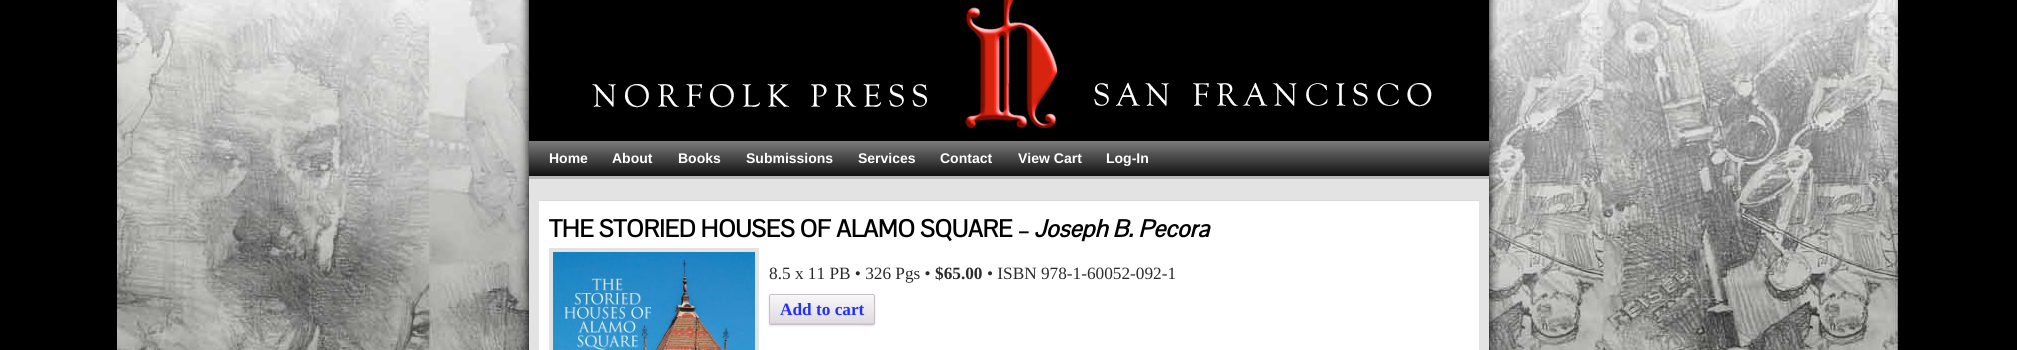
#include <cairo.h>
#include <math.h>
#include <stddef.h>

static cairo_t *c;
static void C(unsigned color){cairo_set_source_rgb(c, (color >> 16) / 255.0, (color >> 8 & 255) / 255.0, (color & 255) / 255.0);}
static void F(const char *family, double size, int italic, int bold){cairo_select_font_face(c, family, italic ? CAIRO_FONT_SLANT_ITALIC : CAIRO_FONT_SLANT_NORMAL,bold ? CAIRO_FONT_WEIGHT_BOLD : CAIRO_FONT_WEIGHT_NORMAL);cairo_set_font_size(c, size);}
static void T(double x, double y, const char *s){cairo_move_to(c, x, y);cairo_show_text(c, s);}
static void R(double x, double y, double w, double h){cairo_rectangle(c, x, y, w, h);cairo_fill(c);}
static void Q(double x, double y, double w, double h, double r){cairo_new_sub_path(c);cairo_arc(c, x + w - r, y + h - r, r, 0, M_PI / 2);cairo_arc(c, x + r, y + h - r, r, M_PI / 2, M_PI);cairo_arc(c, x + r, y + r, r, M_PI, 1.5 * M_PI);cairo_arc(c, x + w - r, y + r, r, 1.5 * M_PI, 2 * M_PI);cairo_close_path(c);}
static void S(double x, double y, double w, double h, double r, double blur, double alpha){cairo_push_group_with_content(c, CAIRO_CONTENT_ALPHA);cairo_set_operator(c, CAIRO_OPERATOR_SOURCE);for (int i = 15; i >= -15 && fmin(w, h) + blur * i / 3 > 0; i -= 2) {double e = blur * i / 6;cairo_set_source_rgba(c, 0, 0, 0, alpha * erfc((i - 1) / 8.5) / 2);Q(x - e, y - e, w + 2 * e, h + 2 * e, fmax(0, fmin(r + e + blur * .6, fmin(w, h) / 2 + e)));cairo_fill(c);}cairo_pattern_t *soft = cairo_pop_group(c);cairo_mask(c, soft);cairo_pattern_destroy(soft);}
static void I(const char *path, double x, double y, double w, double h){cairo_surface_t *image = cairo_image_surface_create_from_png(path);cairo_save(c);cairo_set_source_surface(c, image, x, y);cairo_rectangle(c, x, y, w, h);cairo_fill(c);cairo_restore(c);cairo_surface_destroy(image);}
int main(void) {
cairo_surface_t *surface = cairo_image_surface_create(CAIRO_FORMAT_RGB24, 2017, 350);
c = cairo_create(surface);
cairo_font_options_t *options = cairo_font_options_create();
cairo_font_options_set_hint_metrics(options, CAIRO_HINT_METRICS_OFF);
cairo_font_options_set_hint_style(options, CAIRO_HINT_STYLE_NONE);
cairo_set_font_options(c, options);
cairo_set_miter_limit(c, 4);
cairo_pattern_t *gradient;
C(0x000000);
cairo_paint(c);
I("1.png",117,0,1783,350);
S(529,-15,960,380,0,5,1);
I("2.png",529,0,960,141);
gradient = cairo_pattern_create_linear(1009,141,1009,176);
cairo_pattern_add_color_stop_rgba(gradient,0,0.486,0.486,0.486,1);
cairo_pattern_add_color_stop_rgba(gradient,1,0.063,0.063,0.063,1);
cairo_set_source(c,gradient);
cairo_pattern_destroy(gradient);
R(529,141,960,35);
F("Liberation Sans",14,0,1);
C(0xffffff);
T(549,163,"Home");
T(612,163,"About");
T(678,163,"Books");
T(746,163,"Submissions");
T(858,163,"Services");
T(940,163,"Contact");
T(1018,163,"View Cart");
T(1106,163,"Log-In");
C(0xbababa);
R(529,176,960,3);
C(0xe3e3e3);
R(529,179,960,171);
C(0xffffff);
R(539,201,940,149);
C(0xd8d8d8);
R(539,200,940,1);
F("Pontano Sans",24,0,1);
C(0x000000);
T(549,237,"THE STORIED HOUSES OF ALAMO SQUARE –");
F("Pontano Sans",24,1,1);
T(1034,237,"Joseph B. Pecora");
cairo_rectangle(c,551,250,206,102);
C(0xe3e3e3);
cairo_set_line_width(c,4);
cairo_stroke(c);
I("3.png",553,252,202,98);
F("Liberation Serif",17.25,0,0);
C(0x2c2b2b);
T(769,279,"8.5 x 11 PB • 326 Pgs •");
F("Liberation Serif",17.25,0,1);
T(935,279,"$65.00");
F("Liberation Serif",17.25,0,0);
T(987,279,"• ISBN 978-1-60052-092-1");
C(0x000000);
S(769,295,106,31,2,1,.1);
cairo_save(c);
Q(769,294,106,31,2);
cairo_clip(c);
gradient = cairo_pattern_create_linear(822,295,822,324);
cairo_pattern_add_color_stop_rgba(gradient,0,0.969,0.965,0.969,1);
cairo_pattern_add_color_stop_rgba(gradient,1,0.878,0.855,0.875,1);
cairo_set_source(c,gradient);
cairo_pattern_destroy(gradient);
R(769,295,106,29);
cairo_restore(c);
cairo_set_source_rgba(c,1,1,1,0.3);
cairo_new_path(c);
cairo_move_to(c,771,296);
cairo_line_to(c,873,296);
cairo_curve_to(c,874,296,874,296,874,297);
cairo_line_to(c,873,295);
cairo_line_to(c,788,295);
cairo_curve_to(c,787,295,770,290,770,297);
cairo_curve_to(c,770,296,770,296,771,296);
cairo_close_path(c);
cairo_fill(c);
cairo_set_source_rgba(c,0,0,0,0.07);
cairo_new_path(c);
cairo_move_to(c,770,322);
cairo_line_to(c,771,324);
cairo_line_to(c,856,324);
cairo_curve_to(c,857,324,874,329,874,322);
cairo_curve_to(c,874,323,874,323,873,323);
cairo_line_to(c,771,323);
cairo_curve_to(c,770,323,770,323,770,322);
cairo_close_path(c);
cairo_fill(c);
Q(769.5,294.5,105,30,1.5);
C(0xc8bfc6);
cairo_set_line_width(c,1);
cairo_stroke(c);
F("Liberation Serif",17.25,0,1);
C(0x2130ff);
T(780,315,"Add to cart");
cairo_surface_write_to_png(surface, "o.png");
cairo_font_options_destroy(options);
cairo_destroy(c);
cairo_surface_destroy(surface);
return 0;
}
